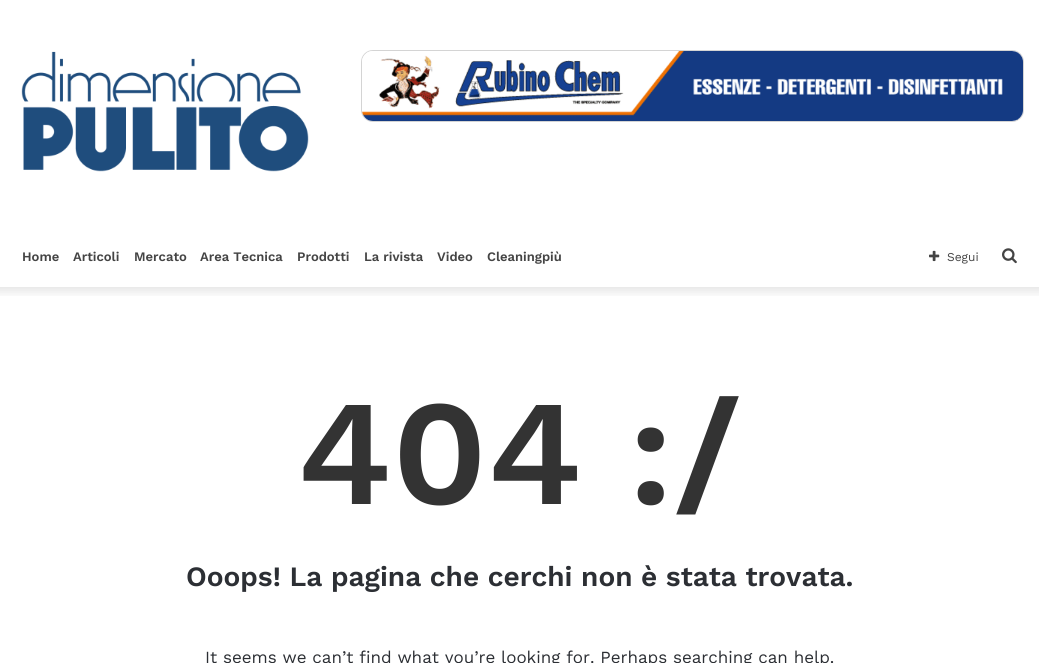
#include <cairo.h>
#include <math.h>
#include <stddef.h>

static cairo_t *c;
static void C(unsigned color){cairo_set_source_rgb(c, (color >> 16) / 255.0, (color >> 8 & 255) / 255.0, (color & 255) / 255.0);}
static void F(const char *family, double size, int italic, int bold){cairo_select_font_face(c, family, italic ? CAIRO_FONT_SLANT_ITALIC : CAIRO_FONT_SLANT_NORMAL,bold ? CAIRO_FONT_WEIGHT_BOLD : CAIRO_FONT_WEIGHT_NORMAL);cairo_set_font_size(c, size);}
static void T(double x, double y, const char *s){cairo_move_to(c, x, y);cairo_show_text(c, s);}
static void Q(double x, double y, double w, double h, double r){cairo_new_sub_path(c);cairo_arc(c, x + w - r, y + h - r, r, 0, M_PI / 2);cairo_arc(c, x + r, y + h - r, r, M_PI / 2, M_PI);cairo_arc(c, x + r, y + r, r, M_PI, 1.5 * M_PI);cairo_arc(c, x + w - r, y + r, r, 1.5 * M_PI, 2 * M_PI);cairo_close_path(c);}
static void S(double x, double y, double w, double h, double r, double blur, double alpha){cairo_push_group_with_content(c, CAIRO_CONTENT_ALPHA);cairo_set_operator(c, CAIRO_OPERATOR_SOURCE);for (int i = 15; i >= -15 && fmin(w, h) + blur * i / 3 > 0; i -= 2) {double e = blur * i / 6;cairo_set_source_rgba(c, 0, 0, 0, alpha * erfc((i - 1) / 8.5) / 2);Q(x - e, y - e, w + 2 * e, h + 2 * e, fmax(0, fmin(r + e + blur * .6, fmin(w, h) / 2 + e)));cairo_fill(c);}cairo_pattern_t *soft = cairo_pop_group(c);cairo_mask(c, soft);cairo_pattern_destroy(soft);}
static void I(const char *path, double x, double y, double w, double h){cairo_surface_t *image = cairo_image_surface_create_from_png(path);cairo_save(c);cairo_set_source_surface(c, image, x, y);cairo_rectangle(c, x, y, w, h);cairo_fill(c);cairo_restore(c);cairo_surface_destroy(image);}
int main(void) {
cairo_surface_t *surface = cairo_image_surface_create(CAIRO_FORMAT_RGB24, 1039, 663);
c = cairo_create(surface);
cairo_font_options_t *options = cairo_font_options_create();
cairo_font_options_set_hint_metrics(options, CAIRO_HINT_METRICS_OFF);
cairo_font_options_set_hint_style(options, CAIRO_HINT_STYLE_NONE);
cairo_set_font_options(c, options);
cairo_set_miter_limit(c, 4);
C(0xffffff);
cairo_paint(c);
cairo_save(c);
cairo_rectangle(c,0,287,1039,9);
cairo_clip(c);
C(0x000000);
S(-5,-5,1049,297,0,5,.1);
cairo_restore(c);
I("1.png",21,51,288,121);
Q(361.5,50.5,662,71,11.5);
C(0xd4d4d4);
cairo_set_line_width(c,1);
cairo_stroke(c);
I("2.png",362,51,661,70);
F("Work Sans SemiBold",13,0,0);
C(0x444444);
T(22,261,"Home");
T(73,261,"Articoli");
T(134,261,"Mercato");
T(200,261,"Area Tecnica");
T(297,261,"Prodotti");
T(364,261,"La rivista");
T(437,261,"Video");
T(487,261,"Cleaningpiù");
I("3.png",929,250,11,12);
F("Work Sans",12,0,0);
T(947,261,"Segui");
I("4.png",1002,248,15,16);
F("Work Sans SemiBold",150,0,0);
C(0x333333);
T(297,504,"404 :/");
F("Work Sans SemiBold",28,0,0);
C(0x2c2f34);
T(186,586,"Ooops! La pagina che cerchi non è stata trovata.");
F("Work Sans",17,0,0);
T(205,663,"It seems we can’t find what you’re looking for. Perhaps searching can help.");
cairo_surface_write_to_png(surface, "o.png");
cairo_font_options_destroy(options);
cairo_destroy(c);
cairo_surface_destroy(surface);
return 0;
}
